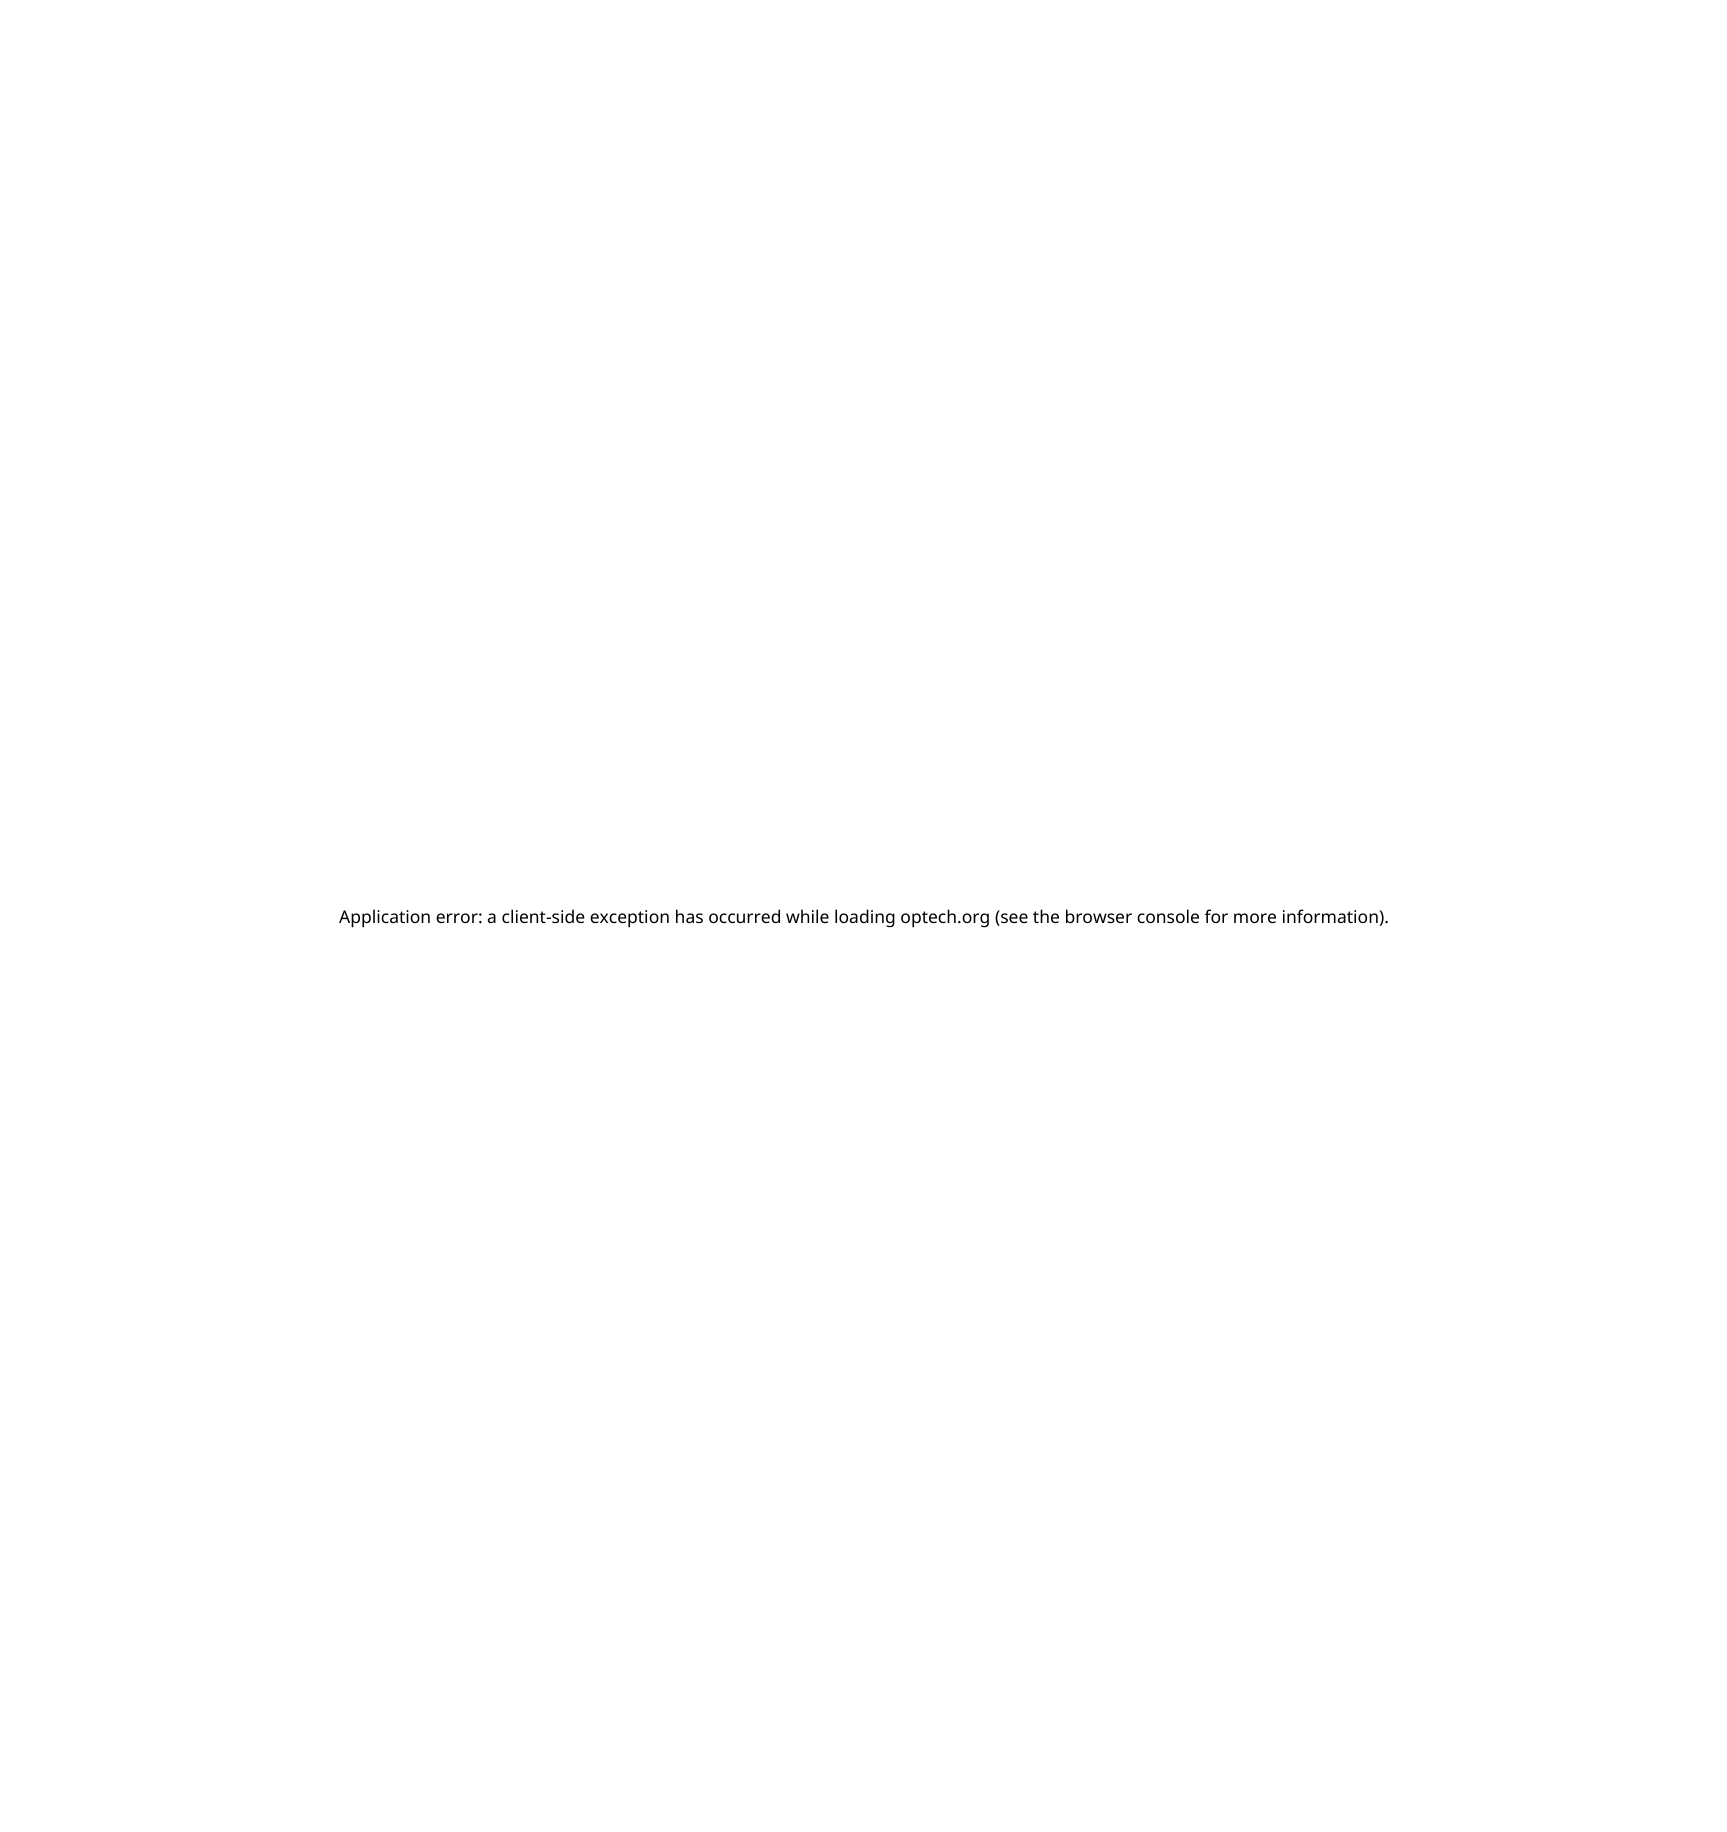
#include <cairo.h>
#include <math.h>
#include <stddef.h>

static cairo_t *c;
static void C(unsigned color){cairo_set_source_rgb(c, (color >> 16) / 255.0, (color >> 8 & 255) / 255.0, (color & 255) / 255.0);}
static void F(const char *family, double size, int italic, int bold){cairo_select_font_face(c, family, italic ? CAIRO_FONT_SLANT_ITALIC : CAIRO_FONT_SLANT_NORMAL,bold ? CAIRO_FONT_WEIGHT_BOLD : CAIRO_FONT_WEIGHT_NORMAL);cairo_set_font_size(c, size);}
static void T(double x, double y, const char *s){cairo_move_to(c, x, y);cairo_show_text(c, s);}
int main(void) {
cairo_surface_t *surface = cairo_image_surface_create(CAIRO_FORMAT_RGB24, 1727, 1832);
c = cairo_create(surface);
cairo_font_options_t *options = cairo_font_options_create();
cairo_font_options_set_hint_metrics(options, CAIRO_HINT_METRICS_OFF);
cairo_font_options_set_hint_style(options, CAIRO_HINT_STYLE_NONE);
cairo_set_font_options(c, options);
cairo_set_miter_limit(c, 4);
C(0xffffff);
cairo_paint(c);
F("Noto Sans",17.5,0,0);
C(0x000000);
T(339,923,"Application error: a client-side exception has occurred while loading optech.org (see the browser console for more information).");
cairo_surface_write_to_png(surface, "o.png");
cairo_font_options_destroy(options);
cairo_destroy(c);
cairo_surface_destroy(surface);
return 0;
}
